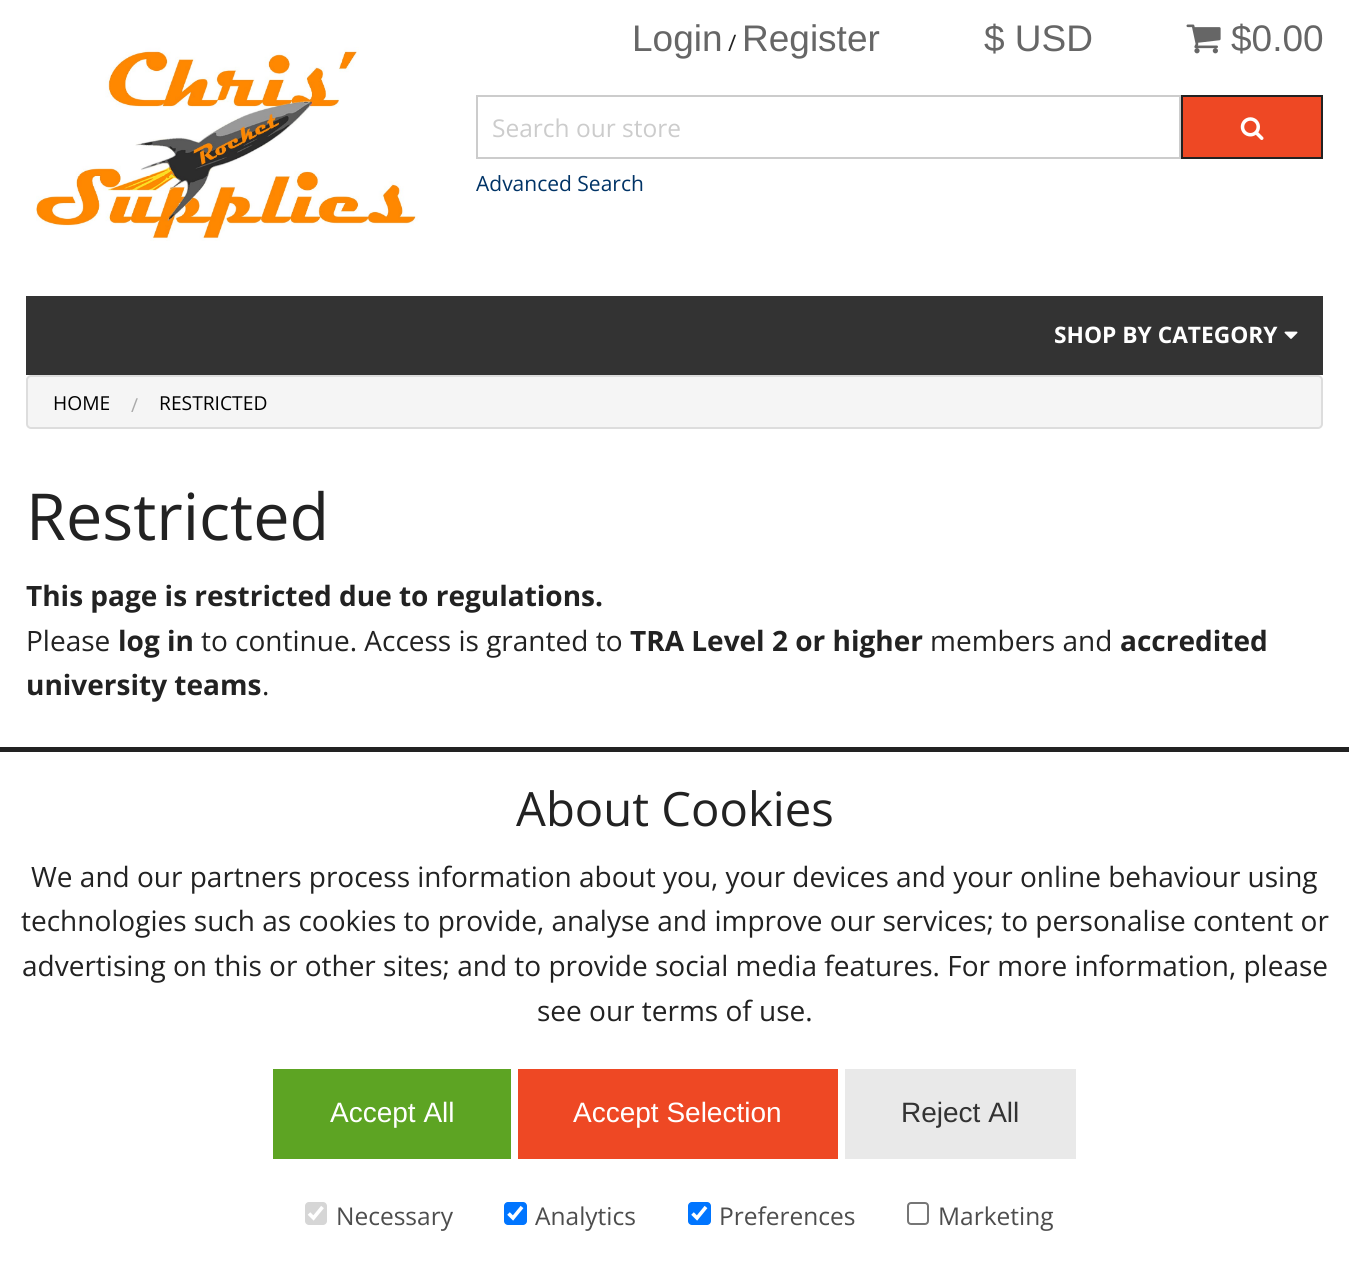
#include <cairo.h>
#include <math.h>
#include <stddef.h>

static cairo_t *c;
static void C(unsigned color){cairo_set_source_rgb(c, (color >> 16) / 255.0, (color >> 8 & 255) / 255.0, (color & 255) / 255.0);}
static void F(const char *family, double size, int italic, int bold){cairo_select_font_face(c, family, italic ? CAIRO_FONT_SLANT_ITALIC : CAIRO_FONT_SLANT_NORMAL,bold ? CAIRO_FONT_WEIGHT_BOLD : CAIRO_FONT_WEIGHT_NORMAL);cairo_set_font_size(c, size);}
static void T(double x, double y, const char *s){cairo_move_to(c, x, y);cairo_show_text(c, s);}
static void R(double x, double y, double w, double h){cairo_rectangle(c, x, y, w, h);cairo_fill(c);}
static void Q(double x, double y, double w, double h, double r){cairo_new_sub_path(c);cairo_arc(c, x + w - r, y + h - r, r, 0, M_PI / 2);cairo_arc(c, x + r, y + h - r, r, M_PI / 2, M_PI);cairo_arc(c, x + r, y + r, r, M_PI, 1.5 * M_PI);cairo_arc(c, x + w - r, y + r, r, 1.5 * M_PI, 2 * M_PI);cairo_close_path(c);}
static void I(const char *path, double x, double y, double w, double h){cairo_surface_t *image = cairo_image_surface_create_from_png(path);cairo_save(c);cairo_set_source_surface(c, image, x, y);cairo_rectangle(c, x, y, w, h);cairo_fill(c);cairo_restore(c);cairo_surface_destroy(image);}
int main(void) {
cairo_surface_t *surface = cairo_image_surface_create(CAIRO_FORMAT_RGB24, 1349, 1288);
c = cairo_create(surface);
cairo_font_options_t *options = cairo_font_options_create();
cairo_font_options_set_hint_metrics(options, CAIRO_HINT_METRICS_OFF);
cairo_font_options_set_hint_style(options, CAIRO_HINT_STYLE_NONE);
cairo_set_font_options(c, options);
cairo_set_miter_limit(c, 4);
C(0xffffff);
cairo_paint(c);
I("1.png",36,47,382,194);
F("Liberation Sans",37,0,0);
C(0x666666);
T(632,51,"Login");
F("Open Sans",22.75,0,0);
C(0x222222);
T(728,51,"/");
F("Liberation Sans",37,0,0);
C(0x666666);
T(742,51,"Register");
T(984,51,"$ USD");
I("2.png",1186,24,35,30);
T(1231,51,"$0.00");
cairo_rectangle(c,477,96,703,62);
C(0xcccccc);
cairo_stroke(c);
F("Open Sans",24.5,0,0);
T(492,137,"Search our store");
F("Open Sans",21,0,0);
C(0x003366);
T(476,191,"Advanced Search");
C(0xee4824);
cairo_rectangle(c,1182,96,140,62);
cairo_fill_preserve(c);
C(0x222222);
cairo_stroke(c);
I("3.png",1240,117,24,23);
C(0x333333);
R(26,296,1297,79);
F("Open Sans",22.75,0,1);
C(0xffffff);
T(1054,343,"SHOP BY CATEGORY");
I("4.png",1284,331,14,8);
C(0xf5f5f5);
Q(27,376,1295,52,4);
cairo_fill_preserve(c);
C(0xdddddd);
cairo_stroke(c);
F("Open Sans",19.25,0,0);
C(0x000000);
T(53,410,"HOME");
C(0xaaaaaa);
T(131,412,"/");
C(0x000000);
T(159,410,"RESTRICTED");
F("Open Sans",64.75,0,0);
C(0x222222);
T(26,540,"Restricted");
F("Open Sans",28,0,1);
T(26,606,"This page is restricted due to regulations.");
F("Open Sans",28,0,0);
T(26,651,"Please");
F("Open Sans",28,0,1);
T(118,651,"log in");
F("Open Sans",28,0,0);
T(201,651,"to continue. Access is granted to");
F("Open Sans",28,0,1);
T(630,651,"TRA Level 2 or higher");
F("Open Sans",28,0,0);
T(930,651,"members and");
F("Open Sans",28,0,1);
T(1120,651,"accredited");
T(26,695,"university teams");
F("Open Sans",28,0,0);
T(262,695,".");
R(0,747,1349,5);
F("Open Sans",47.25,0,0);
T(516,826,"About Cookies");
F("Open Sans",28,0,0);
T(31,887,"We and our partners process information about you, your devices and your online behaviour using");
T(21,931,"technologies such as cookies to provide, analyse and improve our services; to personalise content or");
T(22,976,"advertising on this or other sites; and to provide social media features. For more information, please");
T(537,1021,"see our terms of use.");
C(0x5da423);
R(273,1069,238,90);
F("Liberation Sans",28,0,0);
C(0xffffff);
T(330,1122,"Accept All");
C(0xee4824);
R(518,1069,320,90);
C(0xffffff);
T(573,1122,"Accept Selection");
C(0xe9e9e9);
R(845,1069,231,90);
C(0x333333);
T(901,1122,"Reject All");
C(0xd6d6d6);
Q(305,1202,22,23,4);
cairo_fill(c);
cairo_new_path(c);
cairo_move_to(c,309,1213.5);
cairo_line_to(c,313.5,1218);
cairo_line_to(c,322.5,1207);
C(0xffffff);
cairo_set_line_width(c,3.6);
cairo_stroke(c);
F("Open Sans",24.5,0,0);
C(0x4d4d4d);
T(336,1225,"Necessary");
C(0x0075ff);
Q(504,1202,23,23,4);
cairo_fill(c);
cairo_new_path(c);
cairo_move_to(c,508.5,1213.5);
cairo_line_to(c,513,1218);
cairo_line_to(c,522,1207);
C(0xffffff);
cairo_stroke(c);
C(0x4d4d4d);
T(535,1225,"Analytics");
C(0x0075ff);
Q(688,1202,23,23,4);
cairo_fill(c);
cairo_new_path(c);
cairo_move_to(c,692.5,1213.5);
cairo_line_to(c,697,1218);
cairo_line_to(c,706,1207);
C(0xffffff);
cairo_stroke(c);
C(0x4d4d4d);
T(719,1225,"Preferences");
Q(908,1203,20,21,3);
C(0x767676);
cairo_set_line_width(c,2);
cairo_stroke(c);
C(0x4d4d4d);
T(938,1225,"Marketing");
cairo_surface_write_to_png(surface, "o.png");
cairo_font_options_destroy(options);
cairo_destroy(c);
cairo_surface_destroy(surface);
return 0;
}
